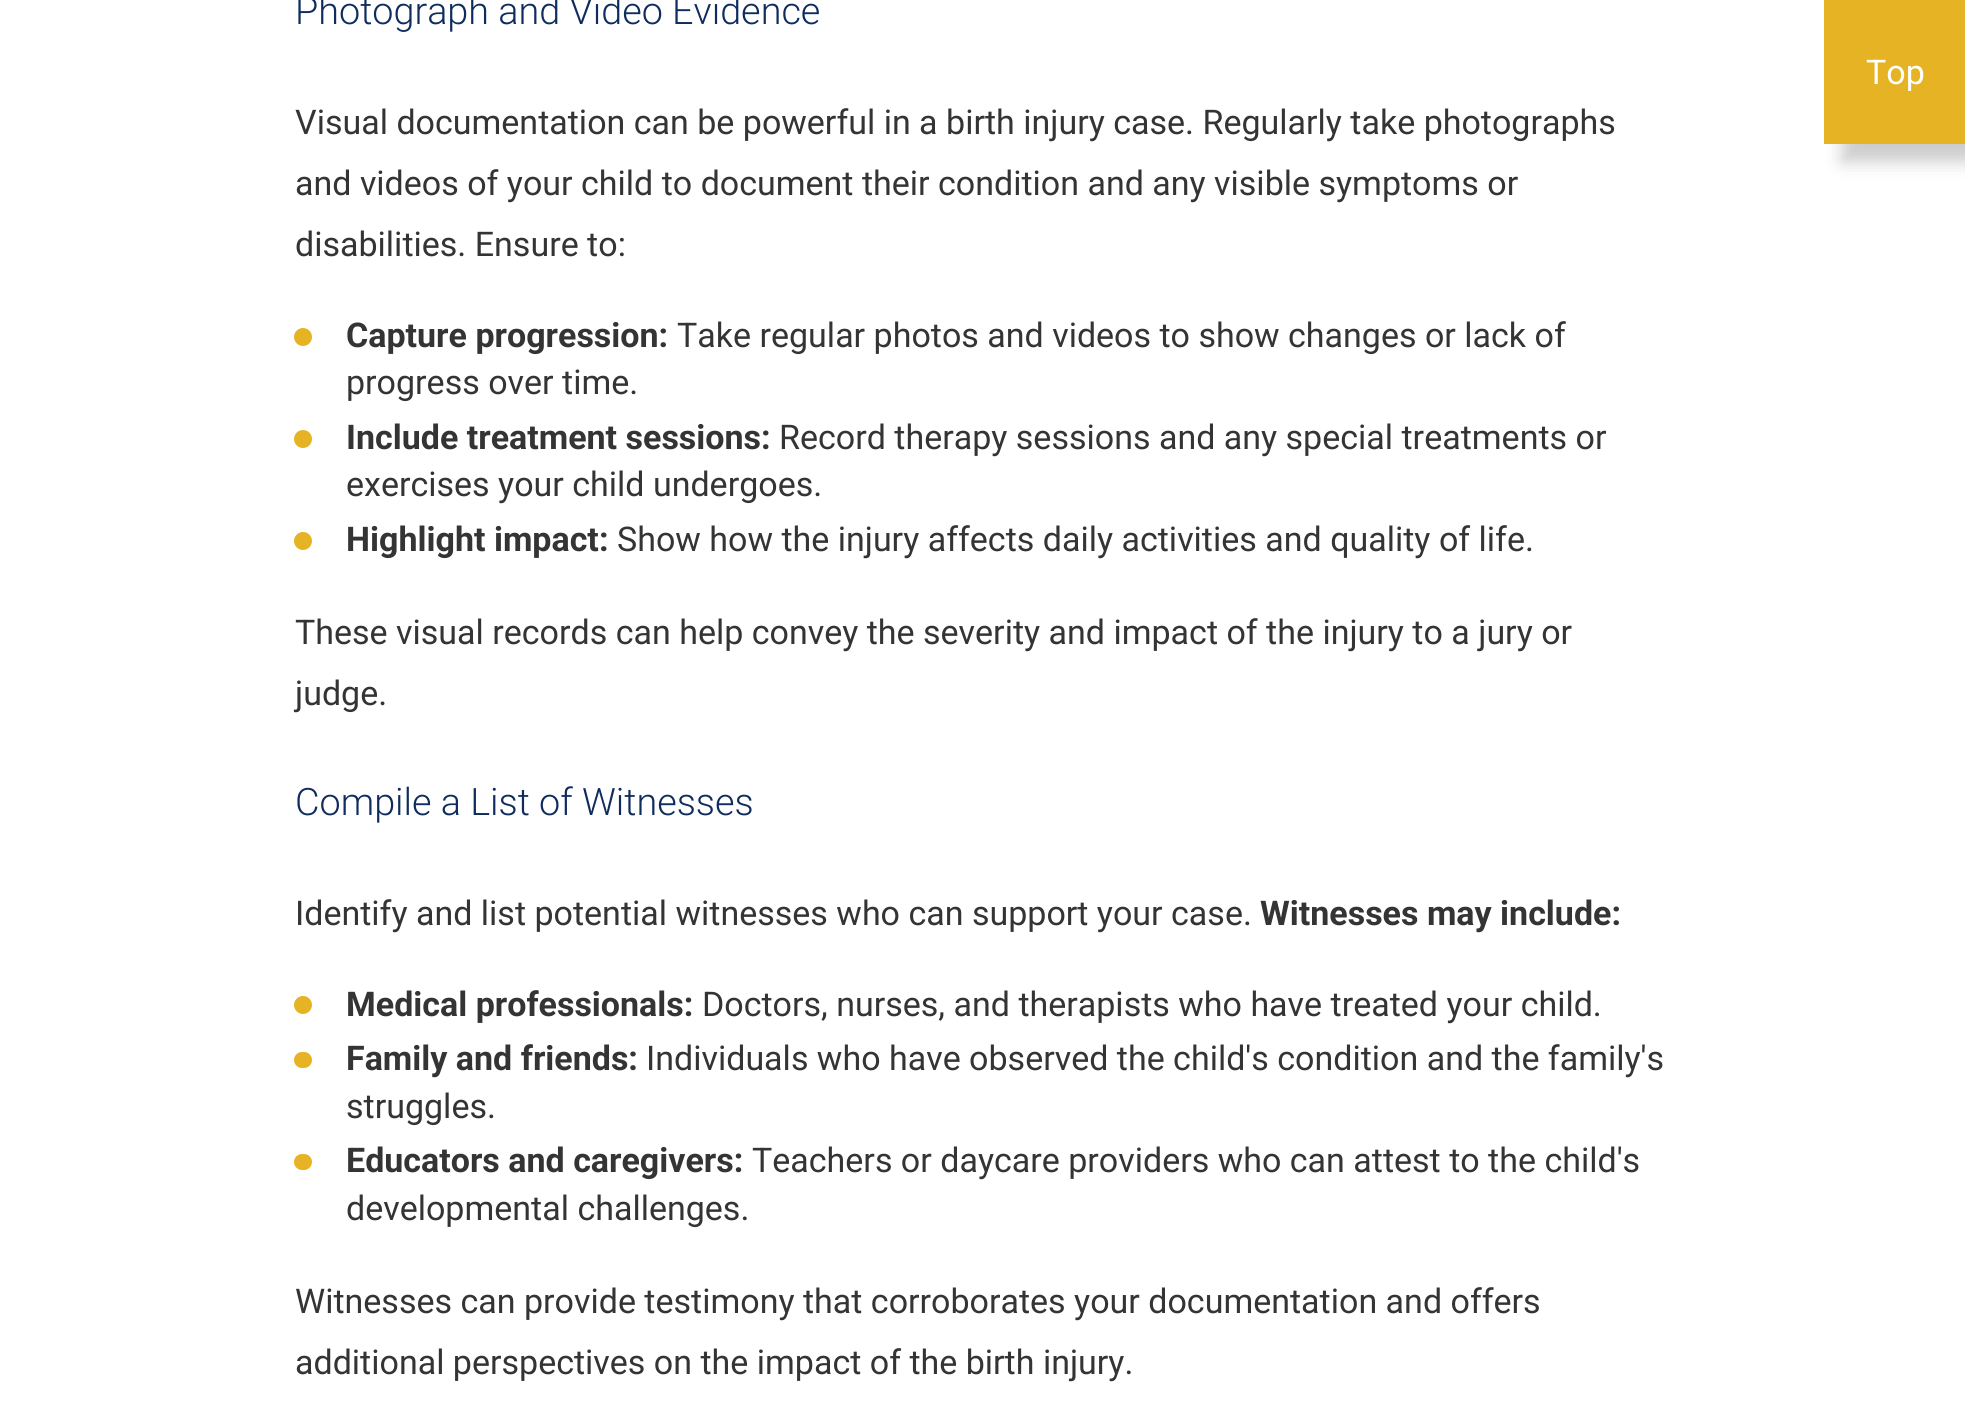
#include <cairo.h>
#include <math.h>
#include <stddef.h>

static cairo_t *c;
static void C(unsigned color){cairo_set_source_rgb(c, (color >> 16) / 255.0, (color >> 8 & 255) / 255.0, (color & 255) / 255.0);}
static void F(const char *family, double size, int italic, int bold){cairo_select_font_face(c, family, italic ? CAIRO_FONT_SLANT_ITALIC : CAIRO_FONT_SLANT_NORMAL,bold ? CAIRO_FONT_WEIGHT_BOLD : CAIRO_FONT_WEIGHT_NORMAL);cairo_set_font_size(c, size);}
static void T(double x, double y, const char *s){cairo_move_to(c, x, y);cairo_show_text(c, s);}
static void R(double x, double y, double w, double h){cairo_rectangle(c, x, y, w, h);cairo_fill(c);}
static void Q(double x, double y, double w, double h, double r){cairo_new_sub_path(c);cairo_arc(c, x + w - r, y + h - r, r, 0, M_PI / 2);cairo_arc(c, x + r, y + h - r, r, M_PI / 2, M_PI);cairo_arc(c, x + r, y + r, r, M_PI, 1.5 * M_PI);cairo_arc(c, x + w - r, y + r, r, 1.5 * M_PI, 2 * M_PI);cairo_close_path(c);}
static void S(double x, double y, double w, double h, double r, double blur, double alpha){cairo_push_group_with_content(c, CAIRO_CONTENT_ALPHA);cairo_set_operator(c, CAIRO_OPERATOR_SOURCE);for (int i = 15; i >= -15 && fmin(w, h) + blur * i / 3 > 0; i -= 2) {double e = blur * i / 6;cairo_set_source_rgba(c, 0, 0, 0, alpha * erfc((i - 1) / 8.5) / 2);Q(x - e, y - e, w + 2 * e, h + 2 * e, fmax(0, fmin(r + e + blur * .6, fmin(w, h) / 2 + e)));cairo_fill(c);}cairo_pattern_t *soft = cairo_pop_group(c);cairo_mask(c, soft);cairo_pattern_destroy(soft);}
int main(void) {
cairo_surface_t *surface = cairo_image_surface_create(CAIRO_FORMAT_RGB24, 1965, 1416);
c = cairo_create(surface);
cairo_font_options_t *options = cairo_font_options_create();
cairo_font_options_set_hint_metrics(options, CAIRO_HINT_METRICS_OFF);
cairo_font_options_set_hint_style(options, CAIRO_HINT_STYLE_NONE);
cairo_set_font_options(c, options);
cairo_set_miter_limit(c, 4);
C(0xffffff);
cairo_paint(c);
F("Roboto Light",37.75,0,0);
C(0x0f2c5e);
T(295,24,"Photograph and Video Evidence");
F("Roboto",34,0,0);
C(0x343434);
T(295,134,"Visual documentation can be powerful in a birth injury case. Regularly take photographs");
T(295,195,"and videos of your child to document their condition and any visible symptoms or");
T(295,256,"disabilities. Ensure to:");
C(0xe6b324);
cairo_new_path(c);
cairo_arc(c,303,337,9,0,2 * M_PI);
cairo_fill(c);
F("Roboto",34,0,1);
C(0x343434);
T(346,347,"Capture progression:");
F("Roboto",34,0,0);
T(677,347,"Take regular photos and videos to show changes or lack of");
T(346,394,"progress over time.");
C(0xe6b324);
cairo_new_path(c);
cairo_arc(c,303,439,9,0,2 * M_PI);
cairo_fill(c);
F("Roboto",34,0,1);
C(0x343434);
T(346,449,"Include treatment sessions:");
F("Roboto",34,0,0);
T(779,449,"Record therapy sessions and any special treatments or");
T(346,496,"exercises your child undergoes.");
C(0xe6b324);
cairo_new_path(c);
cairo_arc(c,303,541,9,0,2 * M_PI);
cairo_fill(c);
F("Roboto",34,0,1);
C(0x343434);
T(346,551,"Highlight impact:");
F("Roboto",34,0,0);
T(617,551,"Show how the injury affects daily activities and quality of life.");
T(295,644,"These visual records can help convey the severity and impact of the injury to a jury or");
T(295,705,"judge.");
F("Roboto Light",37.75,0,0);
C(0x0f2c5e);
T(295,815,"Compile a List of Witnesses");
F("Roboto",34,0,0);
C(0x343434);
T(295,925,"Identify and list potential witnesses who can support your case.");
F("Roboto",34,0,1);
T(1260,925,"Witnesses may include:");
C(0xe6b324);
cairo_new_path(c);
cairo_arc(c,303,1005,9,0,2 * M_PI);
cairo_fill(c);
C(0x343434);
T(346,1016,"Medical professionals:");
F("Roboto",34,0,0);
T(702,1016,"Doctors, nurses, and therapists who have treated your child.");
C(0xe6b324);
Q(294,1052,18,16,8);
cairo_fill(c);
F("Roboto",34,0,1);
C(0x343434);
T(346,1070,"Family and friends:");
F("Roboto",34,0,0);
T(646,1070,"Individuals who have observed the child's condition and the family's");
T(346,1118,"struggles.");
C(0xe6b324);
Q(294,1154,18,16,8);
cairo_fill(c);
F("Roboto",34,0,1);
C(0x343434);
T(346,1172,"Educators and caregivers:");
F("Roboto",34,0,0);
T(752,1172,"Teachers or daycare providers who can attest to the child's");
T(346,1220,"developmental challenges.");
T(295,1313,"Witnesses can provide testimony that corroborates your documentation and offers");
T(295,1374,"additional perspectives on the impact of the birth injury.");
C(0x000000);
S(1842,18,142,144,0,8.5,.2);
C(0xe6b324);
R(1824,0,141,144);
C(0xffffff);
T(1866,84,"Top");
cairo_surface_write_to_png(surface, "o.png");
cairo_font_options_destroy(options);
cairo_destroy(c);
cairo_surface_destroy(surface);
return 0;
}
